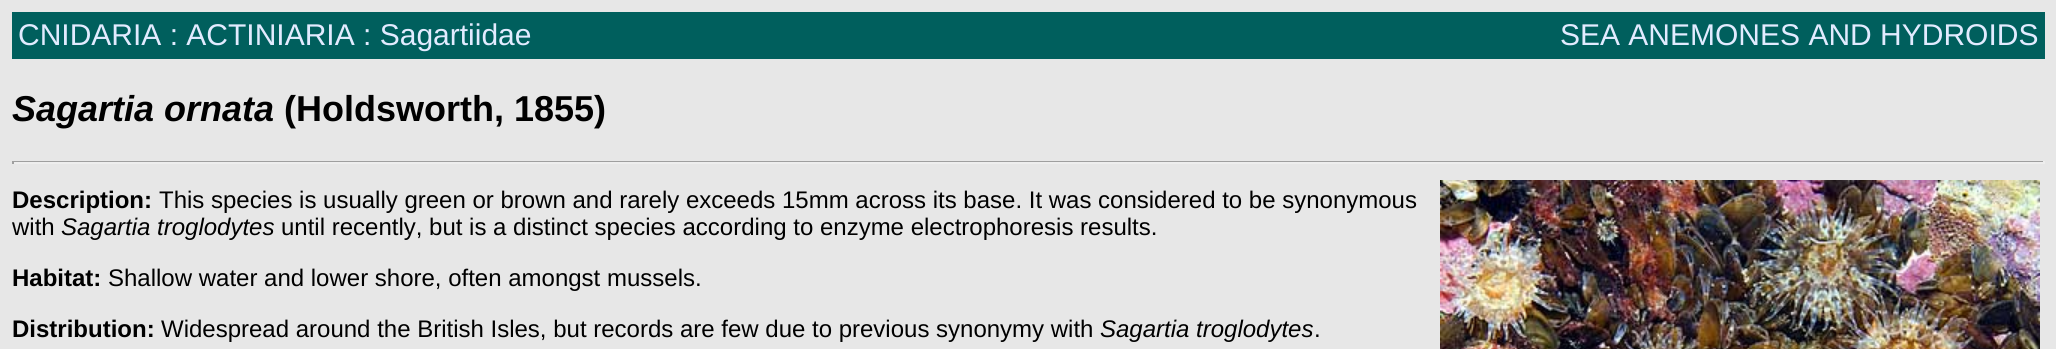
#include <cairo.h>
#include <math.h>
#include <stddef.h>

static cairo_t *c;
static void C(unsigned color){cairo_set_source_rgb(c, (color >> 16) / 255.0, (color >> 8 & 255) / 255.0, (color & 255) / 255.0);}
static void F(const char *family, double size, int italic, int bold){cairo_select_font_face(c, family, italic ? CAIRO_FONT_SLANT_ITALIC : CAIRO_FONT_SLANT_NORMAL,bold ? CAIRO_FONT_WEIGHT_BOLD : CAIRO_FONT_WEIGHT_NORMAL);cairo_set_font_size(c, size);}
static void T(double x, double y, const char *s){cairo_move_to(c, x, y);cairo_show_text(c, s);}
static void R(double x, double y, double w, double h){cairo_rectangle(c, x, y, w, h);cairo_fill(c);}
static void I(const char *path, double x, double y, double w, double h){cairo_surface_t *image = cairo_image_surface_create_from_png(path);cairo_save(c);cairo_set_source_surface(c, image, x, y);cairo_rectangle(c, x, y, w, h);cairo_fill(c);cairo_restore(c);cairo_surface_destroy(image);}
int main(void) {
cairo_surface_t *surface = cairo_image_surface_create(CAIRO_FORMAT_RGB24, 2056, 349);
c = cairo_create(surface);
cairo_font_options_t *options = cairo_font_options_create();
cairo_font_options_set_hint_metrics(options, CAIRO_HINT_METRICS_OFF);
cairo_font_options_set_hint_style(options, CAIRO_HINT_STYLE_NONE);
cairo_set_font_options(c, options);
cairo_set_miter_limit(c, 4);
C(0xe7e7e7);
cairo_paint(c);
C(0x005f5d);
R(12,12,2033,47);
F("Liberation Sans",30,0,0);
C(0xe2ebff);
T(18,45,"CNIDARIA : ACTINIARIA : Sagartiidae");
T(1560,45,"SEA ANEMONES AND HYDROIDS");
F("Liberation Sans",36,1,1);
C(0x000000);
T(12,121,"Sagartia ornata");
F("Liberation Sans",36,0,1);
T(284,121,"(Holdsworth, 1855)");
C(0x9f9f9f);
R(12,161,2033,1);
C(0xeeeeee);
R(2043,161,2,3);
R(12,162,2033,2);
C(0x9f9f9f);
R(12,161,2,3);
F("Liberation Sans",24,0,1);
C(0x000000);
T(12,208,"Description:");
F("Liberation Sans",24,0,0);
T(159,208,"This species is usually green or brown and rarely exceeds 15mm across its base. It was considered to be synonymous");
T(12,235,"with");
F("Liberation Sans",24,1,0);
T(61,235,"Sagartia troglodytes");
F("Liberation Sans",24,0,0);
T(281,235,"until recently, but is a distinct species according to enzyme electrophoresis results.");
I("1.png",1440,180,600,169);
F("Liberation Sans",24,0,1);
T(12,286,"Habitat:");
F("Liberation Sans",24,0,0);
T(108,286,"Shallow water and lower shore, often amongst mussels.");
F("Liberation Sans",24,0,1);
T(12,337,"Distribution:");
F("Liberation Sans",24,0,0);
T(161,337,"Widespread around the British Isles, but records are few due to previous synonymy with");
F("Liberation Sans",24,1,0);
T(1100,337,"Sagartia troglodytes");
F("Liberation Sans",24,0,0);
T(1314,337,".");
cairo_surface_write_to_png(surface, "o.png");
cairo_font_options_destroy(options);
cairo_destroy(c);
cairo_surface_destroy(surface);
return 0;
}
